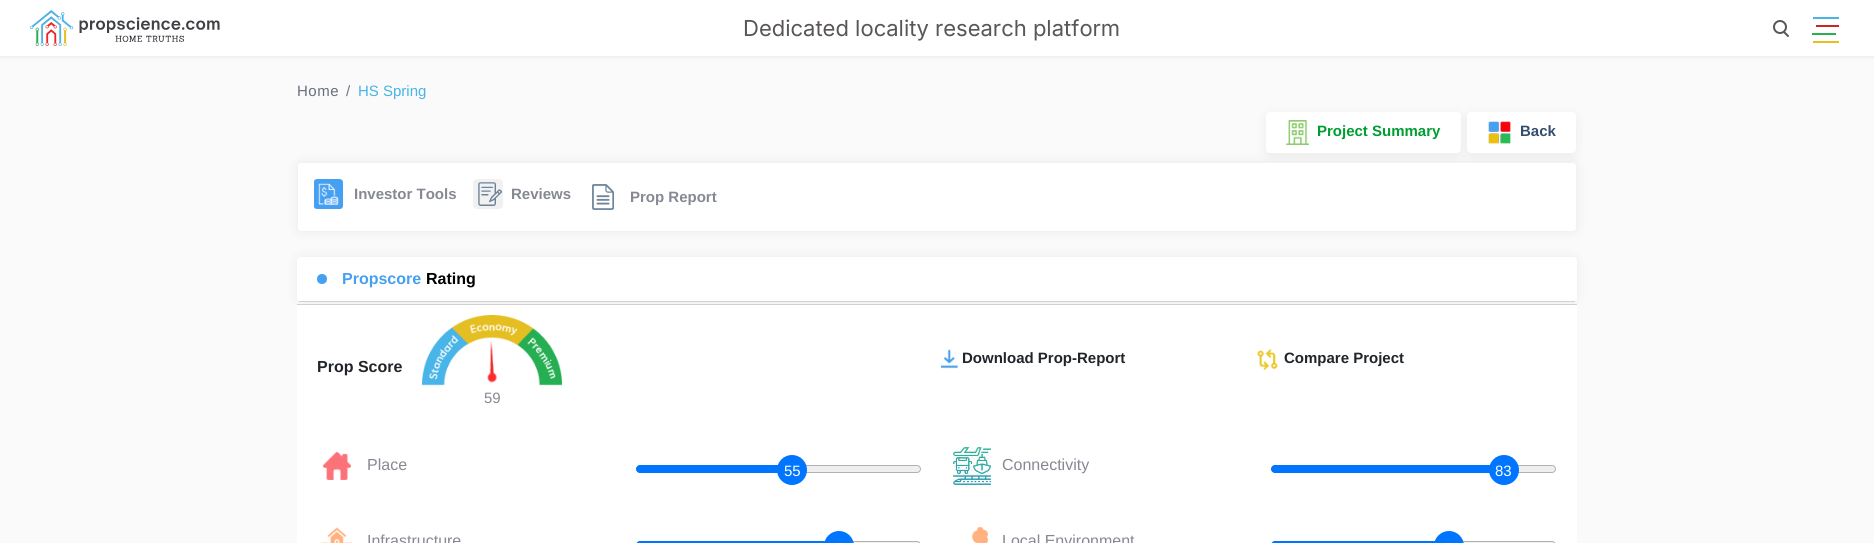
#include <cairo.h>
#include <math.h>
#include <stddef.h>

static cairo_t *c;
static void C(unsigned color){cairo_set_source_rgb(c, (color >> 16) / 255.0, (color >> 8 & 255) / 255.0, (color & 255) / 255.0);}
static void F(const char *family, double size, int italic, int bold){cairo_select_font_face(c, family, italic ? CAIRO_FONT_SLANT_ITALIC : CAIRO_FONT_SLANT_NORMAL,bold ? CAIRO_FONT_WEIGHT_BOLD : CAIRO_FONT_WEIGHT_NORMAL);cairo_set_font_size(c, size);}
static void T(double x, double y, const char *s){cairo_move_to(c, x, y);cairo_show_text(c, s);}
static void L(double x, double y, const char *s, double letter, double word){cairo_move_to(c, x, y);while (*s) {char ch[5] = {0};int n = 0;do ch[n++] = *s++; while ((*s & 0xC0) == 0x80);cairo_show_text(c, ch);cairo_rel_move_to(c, letter + word * (*ch == ' '), 0);}}
static void R(double x, double y, double w, double h){cairo_rectangle(c, x, y, w, h);cairo_fill(c);}
static void Q(double x, double y, double w, double h, double r){cairo_new_sub_path(c);cairo_arc(c, x + w - r, y + h - r, r, 0, M_PI / 2);cairo_arc(c, x + r, y + h - r, r, M_PI / 2, M_PI);cairo_arc(c, x + r, y + r, r, M_PI, 1.5 * M_PI);cairo_arc(c, x + w - r, y + r, r, 1.5 * M_PI, 2 * M_PI);cairo_close_path(c);}
static void S(double x, double y, double w, double h, double r, double blur, double alpha){cairo_push_group_with_content(c, CAIRO_CONTENT_ALPHA);cairo_set_operator(c, CAIRO_OPERATOR_SOURCE);for (int i = 15; i >= -15 && fmin(w, h) + blur * i / 3 > 0; i -= 2) {double e = blur * i / 6;cairo_set_source_rgba(c, 0, 0, 0, alpha * erfc((i - 1) / 8.5) / 2);Q(x - e, y - e, w + 2 * e, h + 2 * e, fmax(0, fmin(r + e + blur * .6, fmin(w, h) / 2 + e)));cairo_fill(c);}cairo_pattern_t *soft = cairo_pop_group(c);cairo_mask(c, soft);cairo_pattern_destroy(soft);}
static void I(const char *path, double x, double y, double w, double h){cairo_surface_t *image = cairo_image_surface_create_from_png(path);cairo_save(c);cairo_set_source_surface(c, image, x, y);cairo_rectangle(c, x, y, w, h);cairo_fill(c);cairo_restore(c);cairo_surface_destroy(image);}
int main(void) {
cairo_surface_t *surface = cairo_image_surface_create(CAIRO_FORMAT_RGB24, 1874, 543);
c = cairo_create(surface);
cairo_font_options_t *options = cairo_font_options_create();
cairo_font_options_set_hint_metrics(options, CAIRO_HINT_METRICS_OFF);
cairo_font_options_set_hint_style(options, CAIRO_HINT_STYLE_NONE);
cairo_set_font_options(c, options);
cairo_set_miter_limit(c, 4);
C(0xfafafa);
cairo_paint(c);
C(0x000000);
S(0,0,1874,56,0,2.5,.1);
C(0xffffff);
R(0,0,1874,56);
I("1.png",30,10,190,36);
F("Inter",22,0,0);
C(0x5a5656);
T(743,36,"Dedicated locality research platform");
I("2.png",1773,20,16,17);
C(0x4db3e6);
R(1813,17,26,2);
C(0xd02326);
R(1816,25,23,2);
C(0x2ab052);
R(1812,33,24,2);
C(0xe7bf20);
R(1813,41,26,2);
F("Liberation Sans",15,0,0);
C(0x696f7c);
L(297,96,"Home",.5,0);
C(0x6c757d);
T(346,96,"/");
C(0x49b4e7);
T(358,96,"HS Spring");
C(0x000000);
S(1265,114,197,43,5,5,.05);
C(0xffffff);
Q(1266,112,195,41,4);
cairo_fill(c);
I("3.png",1286,120,23,25);
F("Liberation Sans",15,0,1);
C(0x009e30);
T(1317,136,"Project Summary");
C(0x000000);
S(1466,114,111,43,5,5,.05);
C(0xffffff);
Q(1467,112,109,41,4);
cairo_fill(c);
I("4.png",1488,121,23,23);
C(0x354e70);
T(1520,136,"Back");
C(0x000000);
S(297,162,1280,70,4,6,.06);
C(0xffffff);
Q(297.5,162.5,1279,69,3.5);
cairo_fill_preserve(c);
C(0xf2f2f2);
cairo_set_line_width(c,1);
cairo_stroke(c);
I("5.png",314,179,29,30);
C(0x868992);
T(354,199,"Investor Tools");
C(0xf1f1f1);
Q(473,179,30,30,4);
cairo_fill(c);
I("6.png",478,182,24,24);
C(0x868992);
T(511,199,"Reviews");
I("7.png",592,184,22,26);
T(630,202,"Prop Report");
C(0x000000);
S(297,257,1280,45,4,6,.06);
C(0xffffff);
Q(297,257,1280,45,4);
cairo_fill(c);
C(0xd1d1d1);
R(299,301,1276,1);
C(0x45a0f2);
cairo_arc(c,322,279,5,0,2 * M_PI);
cairo_fill(c);
F("Liberation Sans",16,0,1);
T(342,284,"Propscore");
C(0x000000);
T(426,284,"Rating");
C(0xffffff);
R(297,305,1280,238);
C(0xd1d1d1);
R(297,304,1280,1);
C(0x212529);
T(317,372,"Prop Score");
I("8.png",422,315,140,71);
F("Liberation Sans",15,0,0);
C(0x868992);
T(484,403,"59");
I("9.png",940,349,19,20);
F("Liberation Sans",15,0,1);
C(0x212529);
T(962,363,"Download Prop-Report");
I("10.png",1257,349,21,21);
T(1284,363,"Compare Project");
I("11.png",323,452,28,28);
F("Liberation Sans",16,0,0);
C(0x868992);
T(367,470,"Place");
C(0xefefef);
Q(636.5,465.5,284,7,3.5);
cairo_fill_preserve(c);
C(0xb2b2b2);
cairo_stroke(c);
C(0x0075ff);
cairo_new_path(c);
cairo_move_to(c,640,465);
cairo_line_to(c,792,465);
cairo_line_to(c,792,473);
cairo_line_to(c,640,473);
cairo_curve_to(c,638,473,636,471,636,469);
cairo_curve_to(c,636,467,638,465,640,465);
cairo_close_path(c);
cairo_fill(c);
cairo_arc(c,792,470,15,0,2 * M_PI);
cairo_fill(c);
F("Liberation Sans",15,0,0);
C(0xffffff);
T(784,476,"55");
I("12.png",953,447,38,38);
F("Liberation Sans",16,0,0);
C(0x868992);
T(1002,470,"Connectivity");
C(0xefefef);
Q(1271.5,465.5,284,7,3.5);
cairo_fill_preserve(c);
C(0xb2b2b2);
cairo_stroke(c);
C(0x0075ff);
cairo_new_path(c);
cairo_move_to(c,1275,465);
cairo_line_to(c,1503,465);
cairo_line_to(c,1503,473);
cairo_line_to(c,1275,473);
cairo_curve_to(c,1273,473,1271,471,1271,469);
cairo_curve_to(c,1271,467,1273,465,1275,465);
cairo_close_path(c);
cairo_fill(c);
cairo_arc(c,1504,470,15,0,2 * M_PI);
cairo_fill(c);
F("Liberation Sans",15,0,0);
C(0xffffff);
T(1495,476,"83");
I("13.png",321,527,32,16);
F("Liberation Sans",16,0,0);
C(0x868992);
T(367,546,"Infrastructure");
C(0xefefef);
Q(636.5,541.5,284,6,3.5);
cairo_fill_preserve(c);
C(0xb2b2b2);
cairo_stroke(c);
C(0x0075ff);
cairo_new_path(c);
cairo_move_to(c,640,541);
cairo_line_to(c,838,541);
cairo_line_to(c,838,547);
cairo_line_to(c,640,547);
cairo_curve_to(c,638,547,636,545,636,543);
cairo_line_to(c,636,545);
cairo_curve_to(c,636,543,638,541,640,541);
cairo_close_path(c);
cairo_fill(c);
Q(824,531,30,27,15);
cairo_fill(c);
I("14.png",972,526,16,17);
C(0x868992);
T(1002,546,"Local Environment");
C(0xefefef);
Q(1271.5,541.5,284,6,3.5);
cairo_fill_preserve(c);
C(0xb2b2b2);
cairo_stroke(c);
C(0x0075ff);
cairo_new_path(c);
cairo_move_to(c,1275,541);
cairo_line_to(c,1449,541);
cairo_line_to(c,1449,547);
cairo_line_to(c,1275,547);
cairo_curve_to(c,1273,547,1271,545,1271,543);
cairo_line_to(c,1271,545);
cairo_curve_to(c,1271,543,1273,541,1275,541);
cairo_close_path(c);
cairo_fill(c);
Q(1434,531,30,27,15);
cairo_fill(c);
cairo_surface_write_to_png(surface, "o.png");
cairo_font_options_destroy(options);
cairo_destroy(c);
cairo_surface_destroy(surface);
return 0;
}
